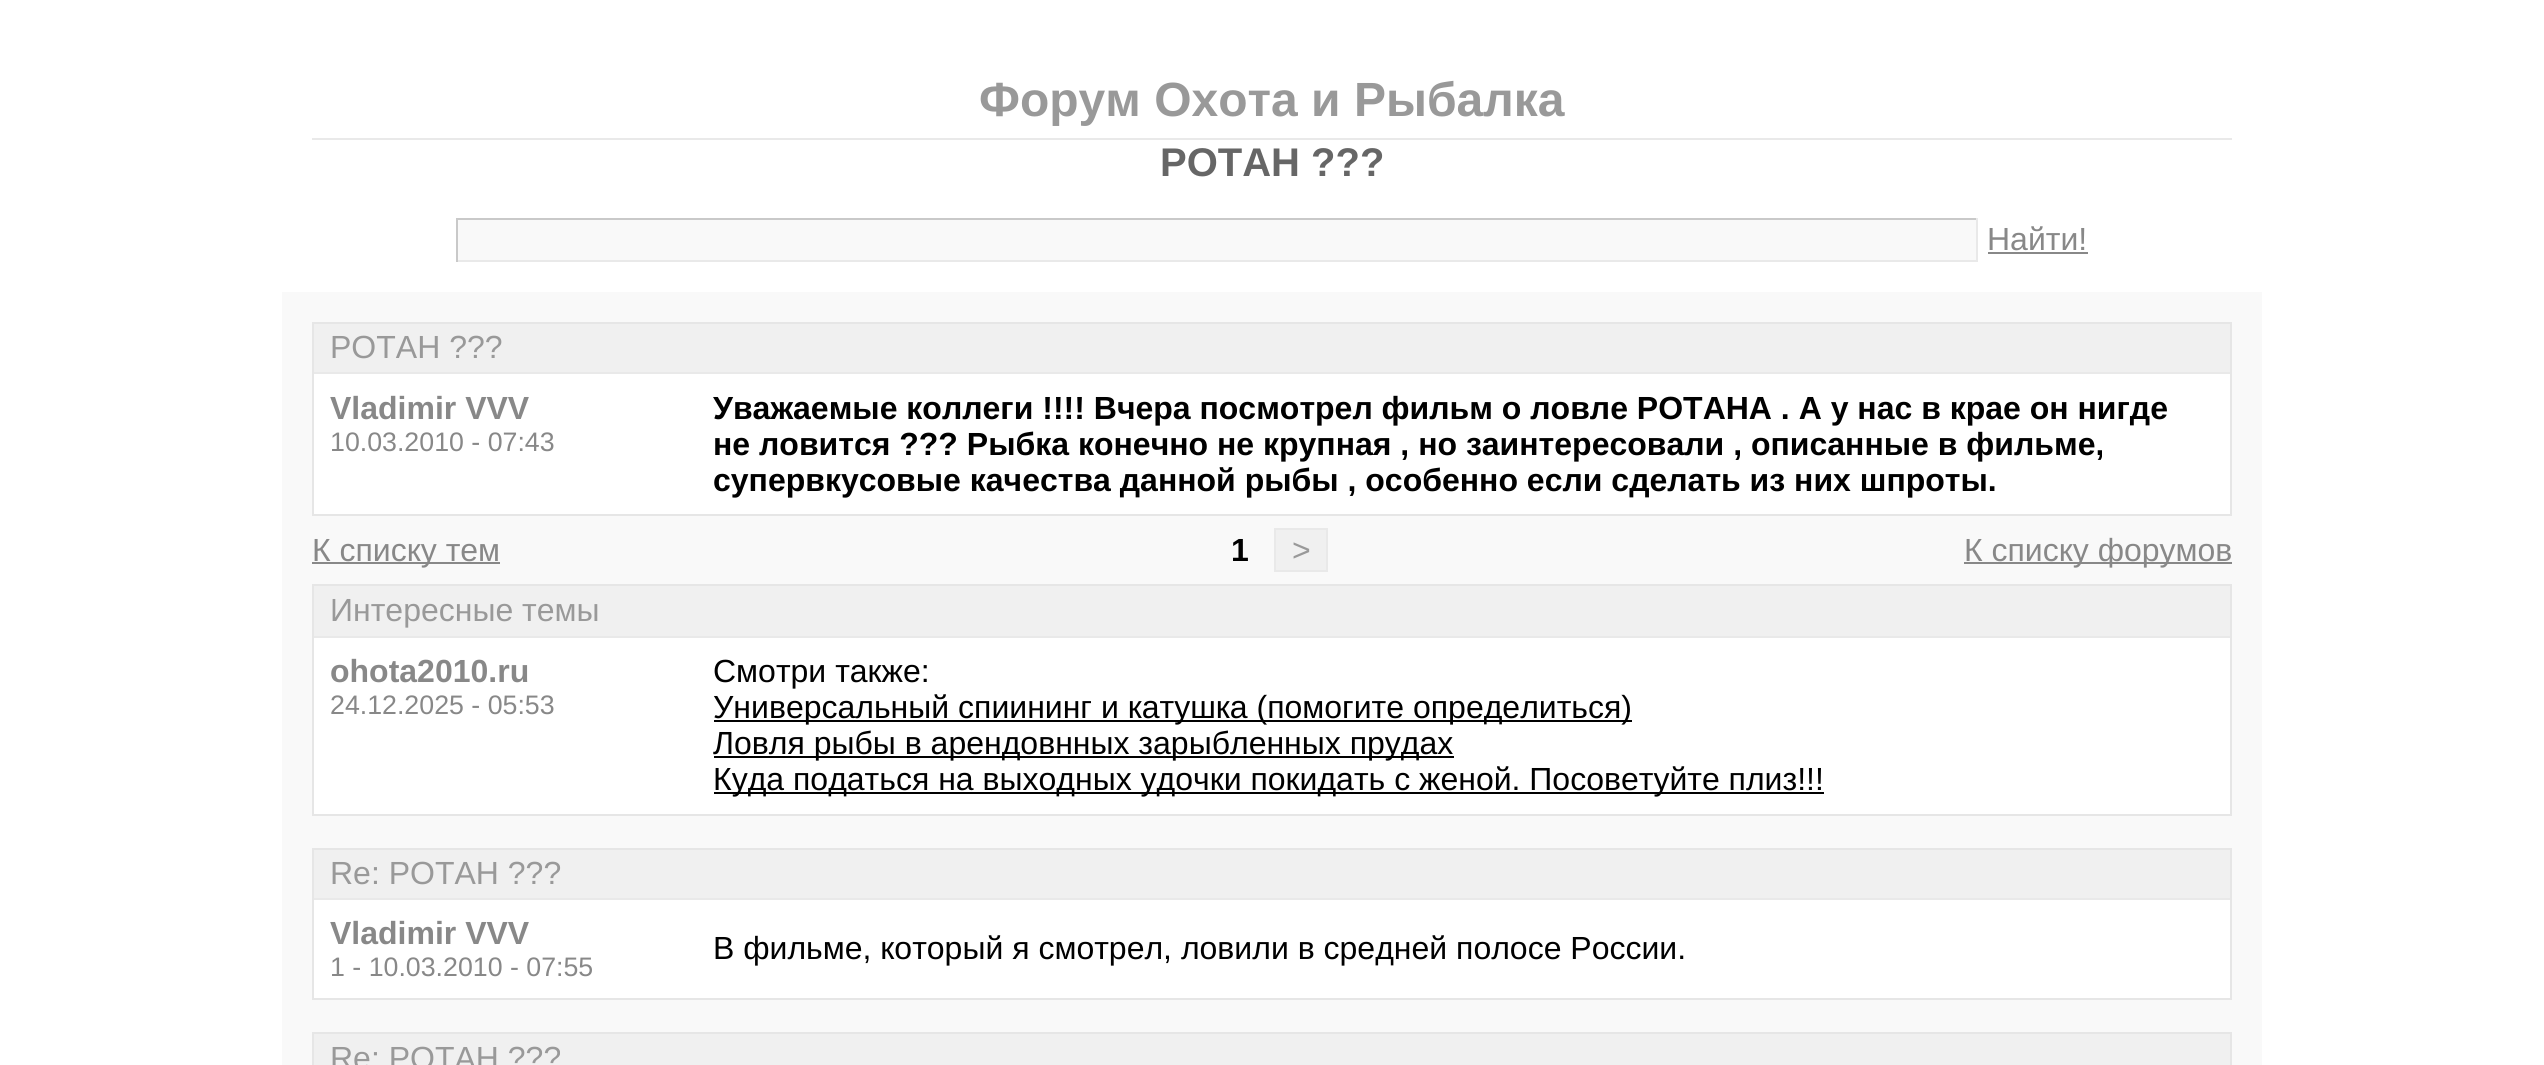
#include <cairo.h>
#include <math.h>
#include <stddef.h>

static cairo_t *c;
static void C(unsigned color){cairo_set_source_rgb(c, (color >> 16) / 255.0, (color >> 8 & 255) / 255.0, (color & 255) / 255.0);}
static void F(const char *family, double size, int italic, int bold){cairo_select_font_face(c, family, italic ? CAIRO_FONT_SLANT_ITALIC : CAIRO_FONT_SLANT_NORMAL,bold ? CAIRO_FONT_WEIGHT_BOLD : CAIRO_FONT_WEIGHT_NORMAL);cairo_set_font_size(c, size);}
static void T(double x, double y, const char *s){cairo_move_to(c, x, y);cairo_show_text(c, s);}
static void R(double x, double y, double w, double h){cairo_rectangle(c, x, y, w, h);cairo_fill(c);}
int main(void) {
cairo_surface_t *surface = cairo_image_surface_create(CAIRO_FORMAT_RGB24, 2544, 1065);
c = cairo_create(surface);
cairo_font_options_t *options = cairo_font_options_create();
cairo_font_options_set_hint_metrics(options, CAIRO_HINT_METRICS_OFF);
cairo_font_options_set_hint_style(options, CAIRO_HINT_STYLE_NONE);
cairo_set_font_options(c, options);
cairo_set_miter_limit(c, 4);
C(0xffffff);
cairo_paint(c);
C(0xe9e9e9);
R(312,138,1920,2);
F("Liberation Sans",48,0,1);
C(0x999999);
T(979,116,"Форум Охота и Рыбалка");
F("Liberation Sans",40,0,1);
C(0x666666);
T(1160,176,"РОТАН ?\077?");
C(0xf9f9f9);
R(458,220,1518,40);
C(0xc9c9c9);
R(456,218,1522,2);
C(0xe9e9e9);
R(1976,218,2,44);
R(456,260,1522,2);
C(0xc9c9c9);
R(456,218,2,44);
F("Liberation Sans",32,0,0);
C(0x888888);
T(1987,250,"Найти!");
R(1988,252,100,2);
C(0xf9f9f9);
R(282,292,1980,773);
C(0xffffff);
R(314,374,1916,140);
cairo_rectangle(c,313,323,1918,192);
C(0xe6e6e6);
cairo_stroke(c);
C(0xf0f0f0);
R(314,324,1916,48);
C(0xe9e9e9);
R(314,372,1916,2);
C(0x999999);
T(330,358,"РОТАН ?\077?");
F("Liberation Sans",32,0,1);
C(0x888888);
T(330,419,"Vladimir VVV");
F("Liberation Sans",26.75,0,0);
T(330,451,"10.03.2010 - 07:43");
F("Liberation Sans",32,0,1);
C(0x000000);
T(713,419,"Уважаемые коллеги !!!! Вчера посмотрел фильм о ловле РОТАНА . А у нас в крае он нигде");
T(713,455,"не ловится ?\077? Рыбка конечно не крупная , но заинтересовали , описанные в фильме,");
T(713,491,"супервкусовые качества данной рыбы , особенно если сделать из них шпроты.");
C(0x888888);
R(312,562,188,2);
F("Liberation Sans",32,0,0);
T(312,561,"К списку тем");
F("Liberation Sans",32,0,1);
C(0x000000);
T(1231,561,"1");
C(0xf0f0f0);
cairo_rectangle(c,1275,529,52,42);
cairo_fill_preserve(c);
C(0xe9e9e9);
cairo_stroke(c);
F("Liberation Sans",32,0,0);
C(0x999999);
T(1292,561,">");
C(0x888888);
R(1964,562,268,2);
T(1964,561,"К списку форумов");
C(0xffffff);
R(314,638,1916,176);
cairo_rectangle(c,313,585,1918,230);
C(0xe6e6e6);
cairo_stroke(c);
C(0xf0f0f0);
R(314,586,1916,50);
C(0xe9e9e9);
R(314,636,1916,2);
C(0x999999);
T(330,621,"Интересные темы");
F("Liberation Sans",32,0,1);
C(0x888888);
T(330,682,"ohota2010.ru");
F("Liberation Sans",26.75,0,0);
T(330,714,"24.12.2025 - 05:53");
F("Liberation Sans",32,0,0);
C(0x000000);
T(713,682,"Смотри также:");
R(714,720,918,2);
T(713,718,"Универсальный спиининг и катушка (помогите определиться)");
R(714,756,740,2);
T(713,754,"Ловля рыбы в арендовнных зарыбленных прудах");
R(714,792,1110,2);
T(713,790,"Куда податься на выходных удочки покидать с женой. Посоветуйте плиз!!!");
C(0xffffff);
R(314,900,1916,98);
cairo_rectangle(c,313,849,1918,150);
C(0xe6e6e6);
cairo_stroke(c);
C(0xf0f0f0);
R(314,850,1916,48);
C(0xe9e9e9);
R(314,898,1916,2);
C(0x999999);
T(330,884,"Re: РОТАН ?\077?");
F("Liberation Sans",32,0,1);
C(0x888888);
T(330,944,"Vladimir VVV");
F("Liberation Sans",26.75,0,0);
T(330,976,"1 - 10.03.2010 - 07:55");
F("Liberation Sans",32,0,0);
C(0x000000);
T(713,959,"В фильме, который я смотрел, ловили в средней полосе России.");
cairo_rectangle(c,313,1033,1918,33);
C(0xe6e6e6);
cairo_stroke(c);
C(0xf0f0f0);
R(314,1034,1916,31);
C(0x999999);
T(330,1069,"Re: РОТАН ?\077?");
cairo_surface_write_to_png(surface, "o.png");
cairo_font_options_destroy(options);
cairo_destroy(c);
cairo_surface_destroy(surface);
return 0;
}
